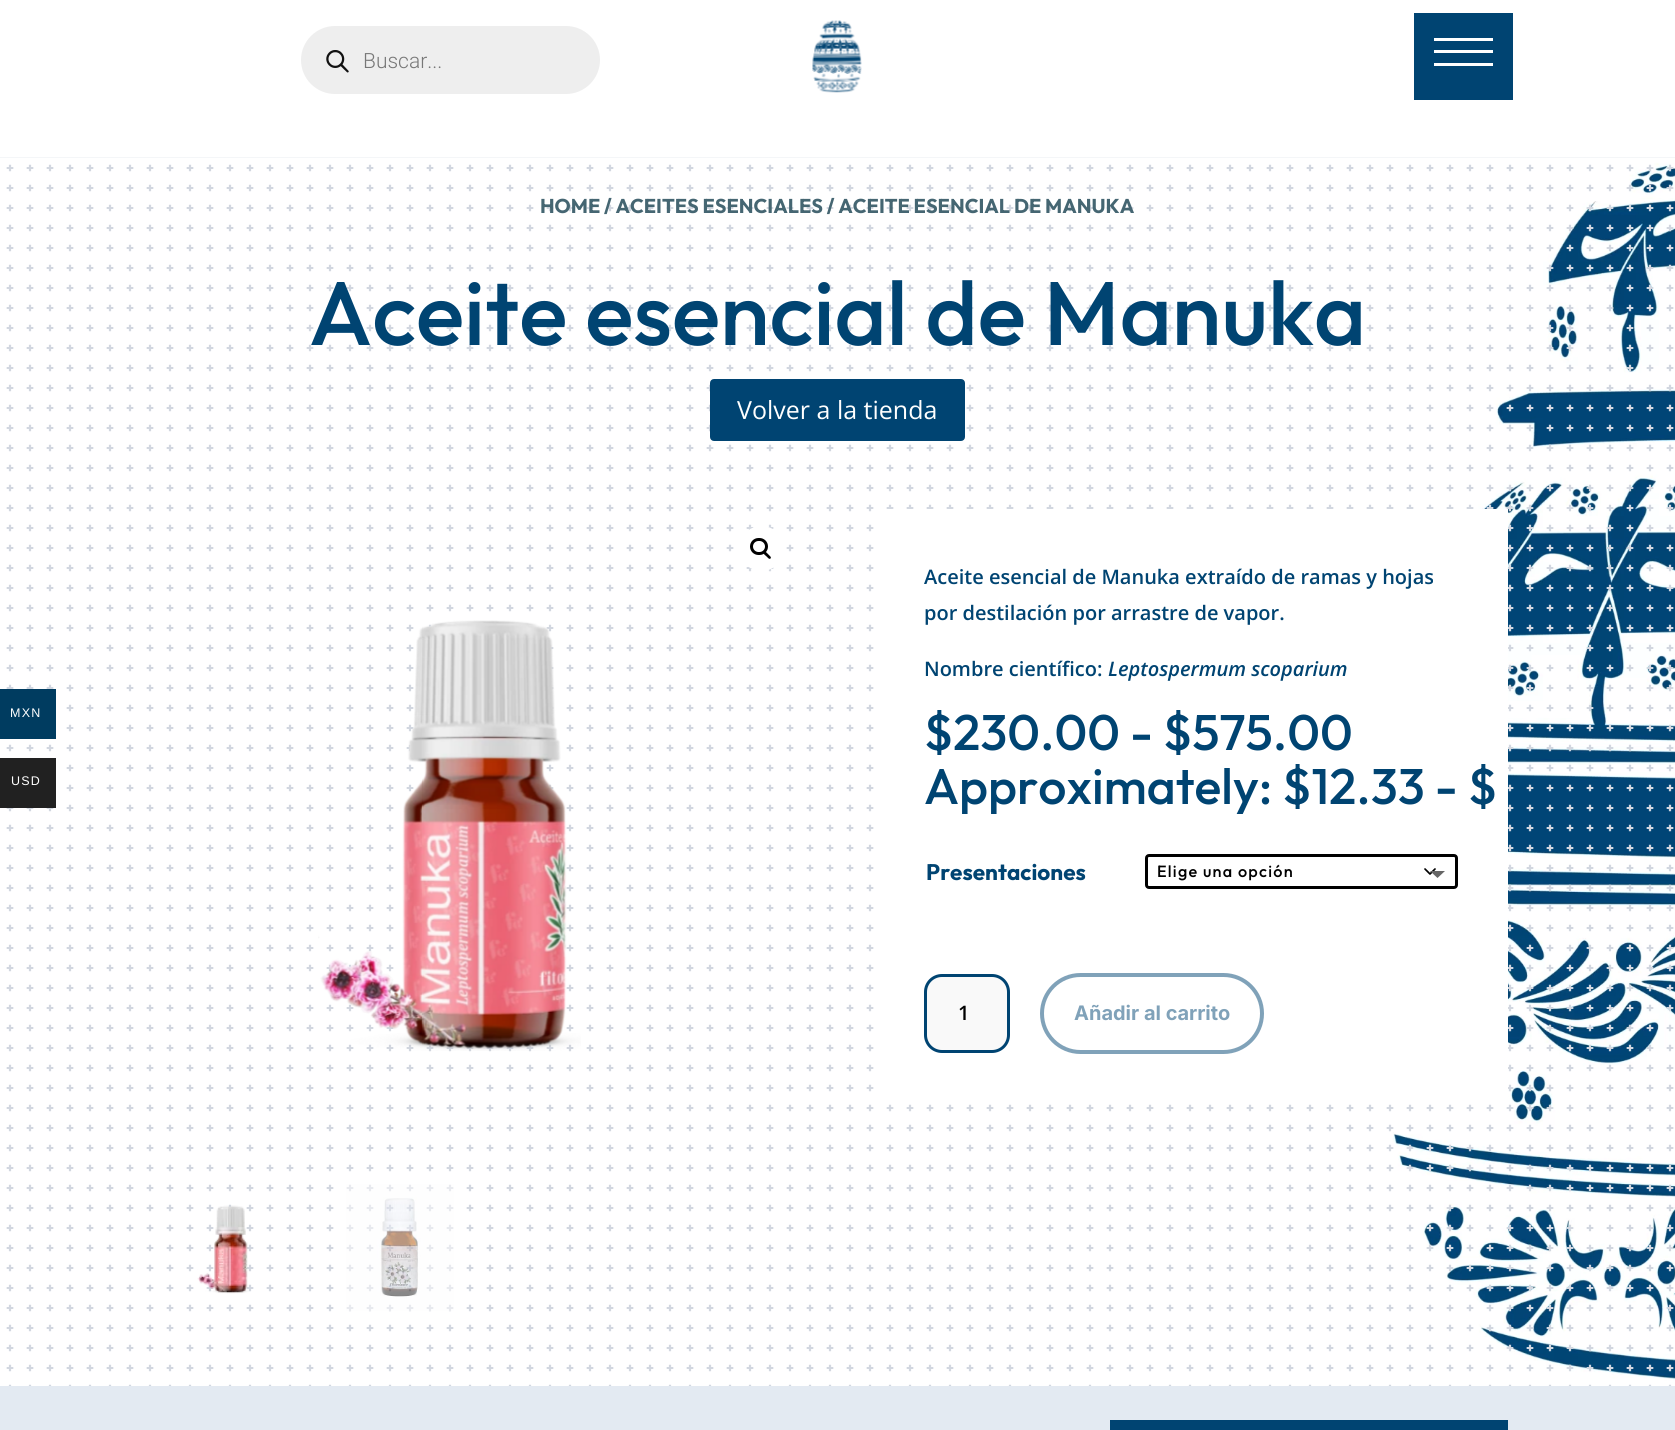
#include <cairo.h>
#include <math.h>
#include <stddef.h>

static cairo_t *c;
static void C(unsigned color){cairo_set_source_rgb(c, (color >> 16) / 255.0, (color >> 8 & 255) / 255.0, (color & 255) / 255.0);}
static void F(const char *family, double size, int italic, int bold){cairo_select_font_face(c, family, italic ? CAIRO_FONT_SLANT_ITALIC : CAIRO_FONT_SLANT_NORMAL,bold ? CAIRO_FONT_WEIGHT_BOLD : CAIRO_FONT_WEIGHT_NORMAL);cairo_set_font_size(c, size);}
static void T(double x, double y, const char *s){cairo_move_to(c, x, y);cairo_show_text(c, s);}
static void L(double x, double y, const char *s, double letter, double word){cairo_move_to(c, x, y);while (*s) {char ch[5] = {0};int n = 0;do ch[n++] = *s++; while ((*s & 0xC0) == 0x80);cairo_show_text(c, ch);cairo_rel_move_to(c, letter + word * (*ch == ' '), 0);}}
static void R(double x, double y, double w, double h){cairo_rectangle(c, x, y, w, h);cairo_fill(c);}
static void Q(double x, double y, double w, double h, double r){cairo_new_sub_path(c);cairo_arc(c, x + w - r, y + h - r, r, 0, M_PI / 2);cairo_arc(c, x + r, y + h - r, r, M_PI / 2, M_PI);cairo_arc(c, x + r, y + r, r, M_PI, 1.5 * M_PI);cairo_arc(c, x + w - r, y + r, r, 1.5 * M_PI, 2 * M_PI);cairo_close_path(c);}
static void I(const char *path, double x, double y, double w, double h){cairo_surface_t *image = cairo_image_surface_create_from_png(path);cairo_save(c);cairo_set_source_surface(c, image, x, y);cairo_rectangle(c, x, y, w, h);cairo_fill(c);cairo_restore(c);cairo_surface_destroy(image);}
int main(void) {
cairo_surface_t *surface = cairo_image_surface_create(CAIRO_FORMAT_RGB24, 1675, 1430);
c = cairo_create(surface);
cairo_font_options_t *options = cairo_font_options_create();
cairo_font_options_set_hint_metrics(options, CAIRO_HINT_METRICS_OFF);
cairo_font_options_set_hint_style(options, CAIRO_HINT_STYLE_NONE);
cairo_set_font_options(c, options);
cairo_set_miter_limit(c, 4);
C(0xffffff);
cairo_paint(c);
I("3.png",0,157,1675,1229);
I("4.png",6,164,1668,1222);
C(0x003c60);
R(0,689,56,50);
F("Liberation Sans",12.5,0,0);
C(0xffffff);
L(10,717,"MXN",1.25,0);
C(0x212121);
R(0,758,56,50);
C(0xffffff);
L(11,785,"USD",1.25,0);
C(0xeeeeee);
Q(301,26,299,68,34);
cairo_fill(c);
I("1.png",326,50,23,23);
F("Roboto Light",21,0,0);
C(0x777777);
T(363,68,"Buscar...");
I("2.png",812,20,50,73);
C(0x004472);
R(1414,13,99,87);
C(0xffffff);
R(1434,38,59,3);
R(1434,50,59,3);
R(1434,63,59,3);
F("Outfit Thin",20,0,0);
C(0x456672);
T(540,213,"HOME / ACEITES ESENCIALES / ACEITE ESENCIAL DE MANUKA");
F("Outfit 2 Thin",90,0,0);
C(0x004472);
T(309,345,"Aceite esencial de Manuka");
Q(711.5,380.5,252,59,2.5);
cairo_fill_preserve(c);
cairo_set_line_width(c,3);
cairo_stroke(c);
F("Open Sans",25,0,0);
C(0xffffff);
T(737,419,"Volver a la tienda");
cairo_new_path(c);
cairo_arc(c,761.5,548.5,22.5,0,2 * M_PI);
cairo_fill(c);
Q(751.5,539.5,15,14,7);
C(0x000000);
cairo_stroke(c);
cairo_new_path(c);
cairo_move_to(c,763.5,551.5);
cairo_curve_to(c,765,550,767,553.5,768,554);
cairo_curve_to(c,768.5,555,772,557,770.5,558.5);
cairo_curve_to(c,769,560,767,556.5,766,556);
cairo_curve_to(c,765,555,762,553,763.5,551.5);
cairo_close_path(c);
cairo_fill(c);
I("5.png",318,620,263,431);
I("6.png",197,1205,52,89);
I("7.png",346,1184,108,127);
C(0xffffff);
R(886,509,622,583);
F("Open Sans SemiBold",20,0,0);
C(0x004472);
T(924,584,"Aceite esencial de Manuka extraído de ramas y hojas");
T(924,620,"por destilación por arrastre de vapor.");
T(924,676,"Nombre científico:");
F("Open Sans SemiBold",20,1,0);
T(1108,676,"Leptospermum scoparium");
F("Outfit 2 Thin",50,0,0);
T(924,750,"$230.00 - $575.00");
T(924,804,"Approximately: $12.33 - $");
F("Outfit Thin",22.5,0,0);
T(926,880,"Presentaciones");
cairo_new_path(c);
cairo_move_to(c,1425,869);
cairo_line_to(c,1430,874);
cairo_line_to(c,1435,869);
C(0x000000);
cairo_set_line_width(c,1.7);
cairo_set_line_cap(c,CAIRO_LINE_CAP_ROUND);
cairo_set_line_join(c,CAIRO_LINE_JOIN_ROUND);
cairo_stroke(c);
Q(1146.5,855.5,310,32,2.5);
cairo_set_line_width(c,3);
cairo_set_line_cap(c,CAIRO_LINE_CAP_BUTT);
cairo_set_line_join(c,CAIRO_LINE_JOIN_MITER);
cairo_stroke(c);
F("Outfit 2 Thin",16.25,0,0);
L(1157,877,"Elige una opción",1.25,0);
C(0x666666);
cairo_new_path(c);
cairo_move_to(c,1430,871);
cairo_line_to(c,1445,871);
cairo_line_to(c,1437.5,878);
cairo_close_path(c);
cairo_fill(c);
C(0xf9f9f9);
Q(925.5,975.5,83,76,16.5);
cairo_fill_preserve(c);
C(0x004472);
cairo_stroke(c);
F("Open Sans SemiBold",20,0,0);
C(0x000000);
T(958,1020,"1");
Q(1042,975,220,77,38.5);
C(0x80a2b9);
cairo_set_line_width(c,4);
cairo_stroke(c);
F("Inter",20,0,1);
T(1074,1020,"Añadir al carrito");
C(0xe3eaf2);
R(0,1386,1675,44);
C(0x004472);
R(1110,1420,398,10);
cairo_surface_write_to_png(surface, "o.png");
cairo_font_options_destroy(options);
cairo_destroy(c);
cairo_surface_destroy(surface);
return 0;
}
